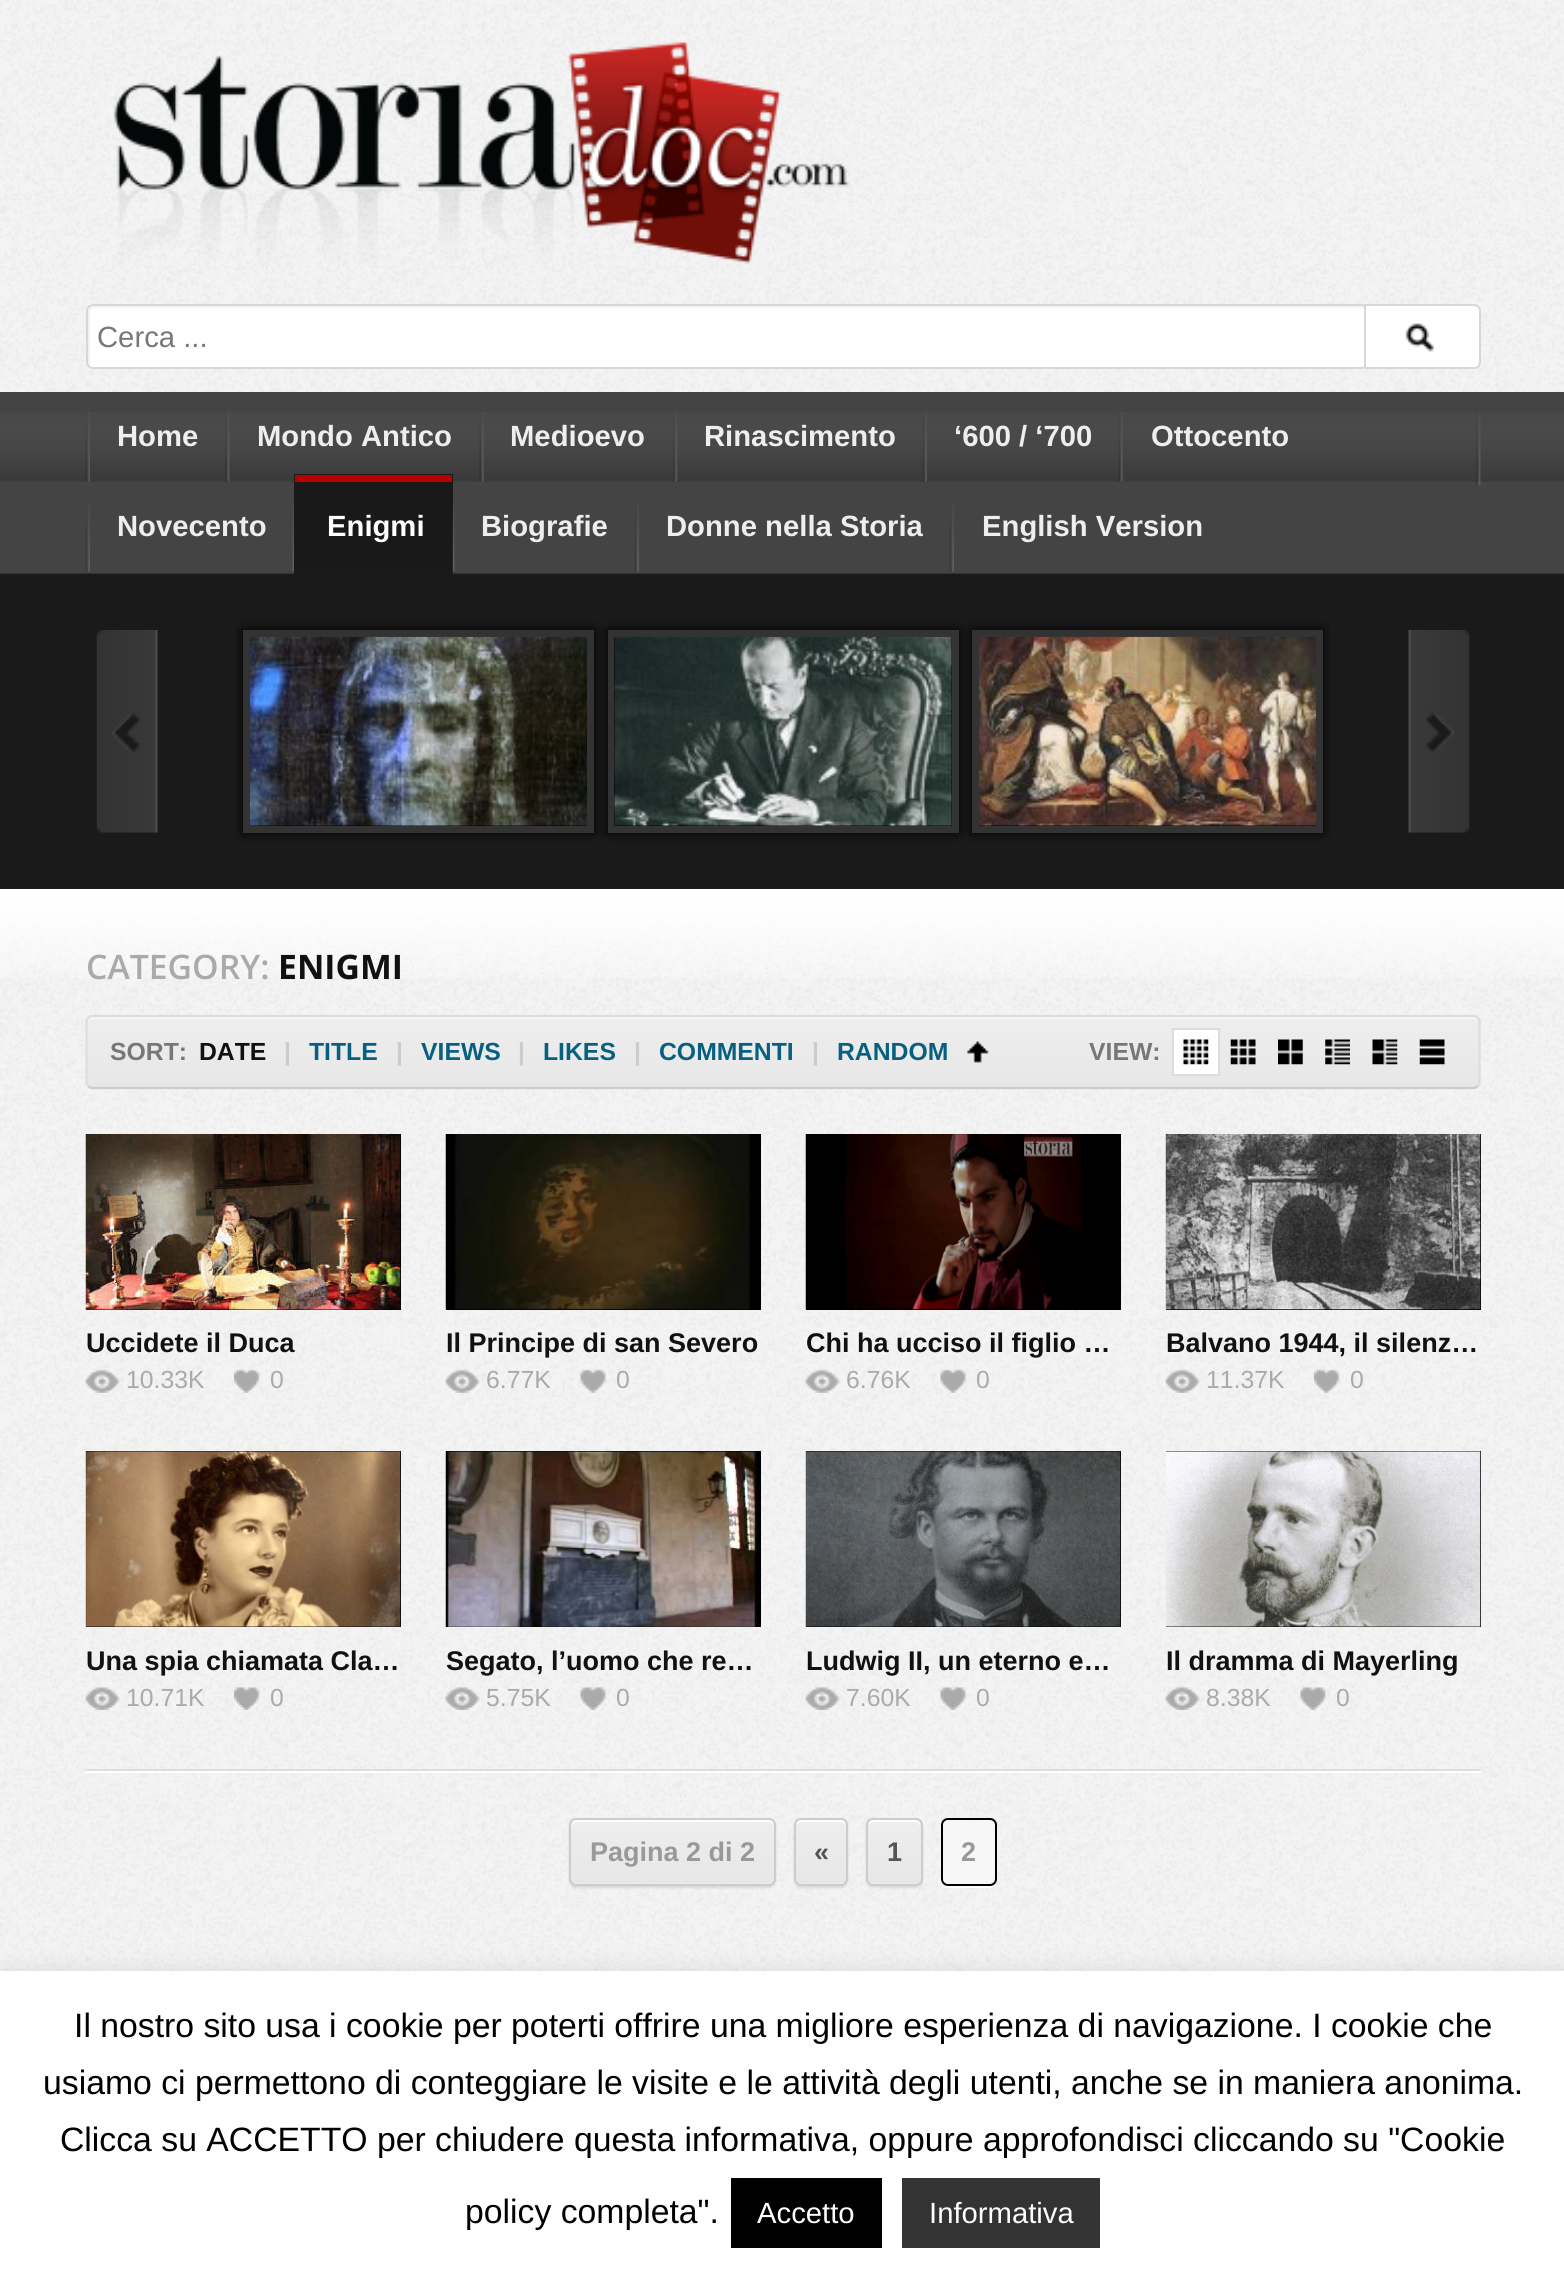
#include <cairo.h>
#include <math.h>
#include <stddef.h>

static cairo_t *c;
static void C(unsigned color){cairo_set_source_rgb(c, (color >> 16) / 255.0, (color >> 8 & 255) / 255.0, (color & 255) / 255.0);}
static void F(const char *family, double size, int italic, int bold){cairo_select_font_face(c, family, italic ? CAIRO_FONT_SLANT_ITALIC : CAIRO_FONT_SLANT_NORMAL,bold ? CAIRO_FONT_WEIGHT_BOLD : CAIRO_FONT_WEIGHT_NORMAL);cairo_set_font_size(c, size);}
static void T(double x, double y, const char *s){cairo_move_to(c, x, y);cairo_show_text(c, s);}
static void R(double x, double y, double w, double h){cairo_rectangle(c, x, y, w, h);cairo_fill(c);}
static void Q(double x, double y, double w, double h, double r){cairo_new_sub_path(c);cairo_arc(c, x + w - r, y + h - r, r, 0, M_PI / 2);cairo_arc(c, x + r, y + h - r, r, M_PI / 2, M_PI);cairo_arc(c, x + r, y + r, r, M_PI, 1.5 * M_PI);cairo_arc(c, x + w - r, y + r, r, 1.5 * M_PI, 2 * M_PI);cairo_close_path(c);}
static void S(double x, double y, double w, double h, double r, double blur, double alpha){cairo_push_group_with_content(c, CAIRO_CONTENT_ALPHA);cairo_set_operator(c, CAIRO_OPERATOR_SOURCE);for (int i = 15; i >= -15 && fmin(w, h) + blur * i / 3 > 0; i -= 2) {double e = blur * i / 6;cairo_set_source_rgba(c, 0, 0, 0, alpha * erfc((i - 1) / 8.5) / 2);Q(x - e, y - e, w + 2 * e, h + 2 * e, fmax(0, fmin(r + e + blur * .6, fmin(w, h) / 2 + e)));cairo_fill(c);}cairo_pattern_t *soft = cairo_pop_group(c);cairo_mask(c, soft);cairo_pattern_destroy(soft);}
static void I(const char *path, double x, double y, double w, double h){cairo_surface_t *image = cairo_image_surface_create_from_png(path);cairo_save(c);cairo_set_source_surface(c, image, x, y);cairo_rectangle(c, x, y, w, h);cairo_fill(c);cairo_restore(c);cairo_surface_destroy(image);}
int main(void) {
cairo_surface_t *surface = cairo_image_surface_create(CAIRO_FORMAT_RGB24, 1564, 2274);
c = cairo_create(surface);
cairo_font_options_t *options = cairo_font_options_create();
cairo_font_options_set_hint_metrics(options, CAIRO_HINT_METRICS_OFF);
cairo_font_options_set_hint_style(options, CAIRO_HINT_STYLE_NONE);
cairo_set_font_options(c, options);
cairo_set_miter_limit(c, 4);
cairo_pattern_t *gradient;
C(0xffffff);
cairo_paint(c);
I("1.png",0,0,1564,1971);
I("2.png",114,42,735,222);
C(0xffffff);
Q(86,304,1282,65,7);
cairo_fill(c);
C(0xf2f2f2);
cairo_new_path(c);
cairo_move_to(c,94,308);
cairo_line_to(c,1365,308);
cairo_curve_to(c,1364,307,1363,306,1361,306);
cairo_line_to(c,93,306);
cairo_curve_to(c,90,306,88,308,88,311);
cairo_line_to(c,88,362);
cairo_curve_to(c,88,364,89,365,90,366);
cairo_line_to(c,90,364);
cairo_line_to(c,90,313);
cairo_curve_to(c,90,310,92,308,94,308);
cairo_close_path(c);
cairo_fill(c);
Q(87,305,1280,63,6);
C(0xd7d7d7);
cairo_stroke(c);
F("Liberation Sans",29.25,0,0);
C(0x777777);
T(97,347,"Cerca ...");
C(0xffffff);
cairo_new_path(c);
cairo_move_to(c,1365,305);
cairo_line_to(c,1474,305);
cairo_curve_to(c,1477.5,305,1480,307.5,1480,311);
cairo_line_to(c,1480,362);
cairo_curve_to(c,1480,365.5,1477.5,368,1474,368);
cairo_line_to(c,1365,368);
cairo_close_path(c);
cairo_fill_preserve(c);
C(0xd7d7d7);
cairo_stroke(c);
I("3.png",1405,323,29,29);
C(0x444444);
R(0,392,1564,180);
I("4.png",0,412,1564,70);
C(0x404040);
R(0,572,1564,2);
I("5.png",1476,411,5,75);
I("6.png",85,411,5,71);
F("Liberation Sans",29.25,0,1);
C(0xeeeeee);
T(117,446,"Home");
I("7.png",225,411,5,71);
T(257,446,"Mondo Antico");
I("8.png",479,412,5,70);
T(510,446,"Medioevo");
I("9.png",673,411,5,71);
T(704,446,"Rinascimento");
I("10.png",922,411,5,71);
T(954,446,"‘600 / ‘700");
I("11.png",1118,412,5,70);
T(1151,446,"Ottocento");
I("12.png",85,501,5,71);
T(117,536,"Novecento");
I("13.png",292,501,2,71);
C(0x191919);
R(294,474,159,100);
C(0xb70000);
R(295,475,157,7);
C(0xffffff);
T(327,536,"Enigmi");
I("14.png",452,501,3,71);
C(0xeeeeee);
T(481,536,"Biografie");
I("12.png",634,501,5,71);
T(666,536,"Donne nella Storia");
I("12.png",949,501,5,71);
T(982,536,"English Version");
C(0x1a1a1a);
R(0,574,1564,315);
I("15.png",0,573,1564,1);
I("16.png",96,630,62,203);
cairo_save(c);
cairo_rectangle(c,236,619,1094,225);
cairo_clip(c);
C(0x000000);
S(243,630,351,203,0,5.5,1);
cairo_restore(c);
C(0x000000);
R(250,825,337,1);
cairo_rectangle(c,246.5,633.5,344,196);
C(0x333333);
cairo_set_line_width(c,7);
cairo_stroke(c);
I("17.png",249,636,338,190);
C(0x000000);
S(608,630,351,203,0,5.5,1);
cairo_rectangle(c,611.5,633.5,344,196);
C(0x333333);
cairo_stroke(c);
C(0x000000);
R(614,637,338,189);
I("18.png",614,636,338,190);
cairo_save(c);
cairo_rectangle(c,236,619,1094,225);
cairo_clip(c);
C(0x000000);
S(972,630,351,203,0,5.5,1);
cairo_restore(c);
R(979,825,337,1);
cairo_rectangle(c,975.5,633.5,344,196);
C(0x333333);
cairo_stroke(c);
I("19.png",979,636,338,190);
I("20.png",1408,630,62,203);
I("21.png",0,894,1564,84);
C(0xffffff);
R(0,889,1564,5);
F("Open Sans SemiBold",33.75,0,0);
C(0xaaaaaa);
T(86,979,"CATEGORY:");
F("Open Sans",33.75,0,1);
C(0x111111);
T(278,979,"ENIGMI");
cairo_save(c);
Q(86,1015,1395,74,7);
cairo_clip(c);
gradient = cairo_pattern_create_linear(783,1017,783,1087);
cairo_pattern_add_color_stop_rgba(gradient,0,0.933,0.933,0.933,1);
cairo_pattern_add_color_stop_rgba(gradient,1,0.906,0.906,0.906,1);
cairo_set_source(c,gradient);
cairo_pattern_destroy(gradient);
R(86,1017,1395,70);
gradient = cairo_pattern_create_linear(783,1087,783,1157);
cairo_pattern_add_color_stop_rgba(gradient,0,0.933,0.933,0.933,1);
cairo_pattern_add_color_stop_rgba(gradient,1,0.906,0.906,0.906,1);
cairo_set_source(c,gradient);
cairo_pattern_destroy(gradient);
R(86,1087,1395,2);
cairo_restore(c);
C(0xf7f7f7);
cairo_new_path(c);
cairo_move_to(c,92,1019);
cairo_line_to(c,1474,1019);
cairo_curve_to(c,1476,1019,1478,1021,1478,1024);
cairo_curve_to(c,1478,1021,1477,1017,1473,1017);
cairo_line_to(c,93,1017);
cairo_curve_to(c,89,1017,88,1021,88,1024);
cairo_curve_to(c,88,1021,90,1019,92,1019);
cairo_close_path(c);
cairo_fill(c);
cairo_new_path(c);
cairo_move_to(c,1477.5,1086);
cairo_curve_to(c,1476.5,1087.5,1475,1088,1474,1088);
cairo_line_to(c,92,1088);
cairo_curve_to(c,91,1088,89.5,1087.5,88.5,1086);
C(0xcccccc);
cairo_set_line_width(c,2.2);
cairo_stroke(c);
cairo_new_path(c);
cairo_move_to(c,88.5,1086);
cairo_curve_to(c,87,1085,86.5,1083.5,86.5,1082);
cairo_line_to(c,86.5,1021.5);
cairo_curve_to(c,86.5,1020,87,1018.5,88.5,1017.5);
cairo_curve_to(c,89.5,1016.5,91,1016,92,1016);
cairo_line_to(c,1474,1016);
cairo_curve_to(c,1475,1016,1476.5,1016.5,1477.5,1017.5);
cairo_curve_to(c,1479,1018.5,1479.5,1020,1479.5,1021.5);
cairo_line_to(c,1479.5,1082);
cairo_curve_to(c,1479.5,1083.5,1479,1085,1477.5,1086);
C(0xdddddd);
cairo_stroke(c);
F("Liberation Sans",24.75,0,1);
C(0x777777);
T(110,1060,"SORT:");
C(0x111111);
T(199,1060,"DATE");
C(0xcccccc);
T(284,1060,"|");
C(0x086081);
T(309,1060,"TITLE");
C(0xcccccc);
T(396,1060,"|");
C(0x086081);
T(421,1060,"VIEWS");
C(0xcccccc);
T(518,1060,"|");
C(0x086081);
T(543,1060,"LIKES");
C(0xcccccc);
T(634,1060,"|");
C(0x086081);
T(659,1060,"COMMENTI");
C(0xcccccc);
T(812,1060,"|");
C(0x086081);
T(837,1060,"RANDOM");
I("22.png",967,1041,22,22);
C(0x777777);
T(1089,1060,"VIEW:");
C(0xffffff);
cairo_rectangle(c,1173,1029,46,46);
cairo_fill_preserve(c);
C(0xdddddd);
cairo_set_line_width(c,2);
cairo_stroke(c);
I("23.png",1183,1039,26,26);
I("24.png",1230,1039,26,26);
I("25.png",1278,1039,25,26);
I("26.png",1325,1039,25,26);
I("27.png",1372,1039,26,26);
I("28.png",1419,1039,26,26);
C(0x000000);
R(86,1134,315,176);
I("29.png",85,1134,316,176);
F("Liberation Sans",27,0,1);
C(0x111111);
T(86,1352,"Uccidete il Duca");
I("30.png",85,1369,35,24);
F("Liberation Sans",24.75,0,0);
C(0xaaaaaa);
T(126,1388,"10.33K");
I("31.png",234,1369,26,24);
T(270,1388,"0");
C(0x000000);
R(446,1134,315,176);
I("32.png",445,1134,305,176);
F("Liberation Sans",27,0,1);
C(0x111111);
T(446,1352,"Il Principe di san Severo");
I("33.png",445,1369,35,24);
F("Liberation Sans",24.75,0,0);
C(0xaaaaaa);
T(486,1388,"6.77K");
I("34.png",580,1369,26,24);
T(616,1388,"0");
C(0x000000);
R(806,1134,315,176);
I("35.png",805,1134,276,176);
F("Liberation Sans",27,0,1);
C(0x111111);
T(806,1352,"Chi ha ucciso il figlio …");
I("36.png",805,1369,35,24);
F("Liberation Sans",24.75,0,0);
C(0xaaaaaa);
T(846,1388,"6.76K");
I("37.png",940,1369,26,24);
T(976,1388,"0");
C(0x000000);
R(1166,1134,315,176);
I("38.png",1165,1134,316,176);
F("Liberation Sans",27,0,1);
C(0x111111);
T(1166,1352,"Balvano 1944, il silenz…");
I("39.png",1165,1369,35,24);
F("Liberation Sans",24.75,0,0);
C(0xaaaaaa);
T(1206,1388,"11.37K");
I("40.png",1314,1369,26,24);
T(1350,1388,"0");
C(0x000000);
R(86,1451,315,176);
I("41.png",85,1451,316,176);
F("Liberation Sans",27,0,1);
C(0x111111);
T(86,1670,"Una spia chiamata Cla…");
I("42.png",85,1687,35,23);
F("Liberation Sans",24.75,0,0);
C(0xaaaaaa);
T(126,1706,"10.71K");
I("43.png",234,1687,26,23);
T(270,1706,"0");
C(0x000000);
R(446,1451,315,176);
I("44.png",445,1451,315,176);
F("Liberation Sans",27,0,1);
C(0x111111);
T(446,1670,"Segato, l’uomo che re…");
I("45.png",445,1687,35,23);
F("Liberation Sans",24.75,0,0);
C(0xaaaaaa);
T(486,1706,"5.75K");
I("46.png",580,1687,26,23);
T(616,1706,"0");
C(0x000000);
R(806,1451,315,176);
I("47.png",805,1451,316,176);
F("Liberation Sans",27,0,1);
C(0x111111);
T(806,1670,"Ludwig II, un eterno e…");
I("48.png",805,1687,35,23);
F("Liberation Sans",24.75,0,0);
C(0xaaaaaa);
T(846,1706,"7.60K");
I("49.png",940,1687,26,23);
T(976,1706,"0");
C(0x000000);
R(1166,1451,315,176);
I("50.png",1165,1451,316,176);
F("Liberation Sans",27,0,1);
C(0x111111);
T(1166,1670,"Il dramma di Mayerling");
I("51.png",1165,1687,35,23);
F("Liberation Sans",24.75,0,0);
C(0xaaaaaa);
T(1206,1706,"8.38K");
I("52.png",1300,1687,26,23);
T(1336,1706,"0");
C(0xdddddd);
R(86,1769,1395,2);
C(0xffffff);
R(86,1771,1395,2);
C(0x000000);
S(569,1820,207,68,7,1,.1);
cairo_save(c);
Q(569,1818,207,68,7);
cairo_clip(c);
gradient = cairo_pattern_create_linear(673,1820,673,1883);
cairo_pattern_add_color_stop_rgba(gradient,0,0.933,0.933,0.933,1);
cairo_pattern_add_color_stop_rgba(gradient,1,0.906,0.906,0.906,1);
cairo_set_source(c,gradient);
cairo_pattern_destroy(gradient);
R(569,1820,207,63);
gradient = cairo_pattern_create_linear(673,1883,673,1946);
cairo_pattern_add_color_stop_rgba(gradient,0,0.933,0.933,0.933,1);
cairo_pattern_add_color_stop_rgba(gradient,1,0.906,0.906,0.906,1);
cairo_set_source(c,gradient);
cairo_pattern_destroy(gradient);
R(569,1883,207,3);
cairo_restore(c);
C(0xffffff);
cairo_new_path(c);
cairo_move_to(c,576,1822);
cairo_line_to(c,770,1822);
cairo_curve_to(c,772,1822,774,1825,774,1827);
cairo_line_to(c,774,1825);
cairo_curve_to(c,774,1822,772,1820,769,1820);
cairo_line_to(c,577,1820);
cairo_curve_to(c,574,1820,572,1822,572,1825);
cairo_line_to(c,572,1827);
cairo_curve_to(c,572,1825,574,1822,576,1822);
cairo_close_path(c);
cairo_fill(c);
Q(570,1819,205,66,6);
C(0xcccccc);
cairo_stroke(c);
F("Liberation Sans",27,0,1);
C(0x999999);
T(590,1861,"Pagina 2 di 2");
C(0x000000);
S(794,1820,54,68,7,1,.1);
cairo_save(c);
Q(794,1818,54,68,7);
cairo_clip(c);
gradient = cairo_pattern_create_linear(821,1820,821,1883);
cairo_pattern_add_color_stop_rgba(gradient,0,0.933,0.933,0.933,1);
cairo_pattern_add_color_stop_rgba(gradient,1,0.906,0.906,0.906,1);
cairo_set_source(c,gradient);
cairo_pattern_destroy(gradient);
R(794,1820,54,63);
gradient = cairo_pattern_create_linear(821,1883,821,1946);
cairo_pattern_add_color_stop_rgba(gradient,0,0.933,0.933,0.933,1);
cairo_pattern_add_color_stop_rgba(gradient,1,0.906,0.906,0.906,1);
cairo_set_source(c,gradient);
cairo_pattern_destroy(gradient);
R(794,1883,54,3);
cairo_restore(c);
C(0xffffff);
cairo_new_path(c);
cairo_move_to(c,801,1822);
cairo_line_to(c,842,1822);
cairo_curve_to(c,844,1822,846,1825,846,1827);
cairo_line_to(c,846,1825);
cairo_curve_to(c,846,1822,844,1820,841,1820);
cairo_line_to(c,802,1820);
cairo_curve_to(c,799,1820,797,1822,797,1825);
cairo_curve_to(c,798,1823,800,1822,801,1822);
cairo_close_path(c);
cairo_fill(c);
Q(795,1819,52,66,6);
C(0xcccccc);
cairo_stroke(c);
C(0x555555);
T(814,1861,"«");
C(0x000000);
S(866,1820,57,68,7,1,.1);
cairo_save(c);
Q(866,1818,57,68,7);
cairo_clip(c);
gradient = cairo_pattern_create_linear(894,1820,894,1883);
cairo_pattern_add_color_stop_rgba(gradient,0,0.933,0.933,0.933,1);
cairo_pattern_add_color_stop_rgba(gradient,1,0.906,0.906,0.906,1);
cairo_set_source(c,gradient);
cairo_pattern_destroy(gradient);
R(866,1820,57,63);
gradient = cairo_pattern_create_linear(894,1883,894,1946);
cairo_pattern_add_color_stop_rgba(gradient,0,0.933,0.933,0.933,1);
cairo_pattern_add_color_stop_rgba(gradient,1,0.906,0.906,0.906,1);
cairo_set_source(c,gradient);
cairo_pattern_destroy(gradient);
R(866,1883,57,3);
cairo_restore(c);
C(0xffffff);
cairo_new_path(c);
cairo_move_to(c,873,1822);
cairo_line_to(c,916,1822);
cairo_curve_to(c,918,1822,920,1825,920,1827);
cairo_line_to(c,920,1825);
cairo_curve_to(c,920,1822,918,1820,915,1820);
cairo_line_to(c,874,1820);
cairo_curve_to(c,871,1820,869,1822,869,1825);
cairo_curve_to(c,870,1823,872,1822,873,1822);
cairo_close_path(c);
cairo_fill(c);
Q(867,1819,55,66,6);
C(0xcccccc);
cairo_stroke(c);
C(0x555555);
T(887,1861,"1");
C(0xffffff);
cairo_new_path(c);
cairo_move_to(c,941,1881);
cairo_curve_to(c,941,1885,944,1888,948,1888);
cairo_line_to(c,991,1888);
cairo_curve_to(c,999,1886,997,1877,997,1872);
cairo_line_to(c,997,1825);
cairo_line_to(c,997,1879);
cairo_curve_to(c,997,1882,994,1886,990,1886);
cairo_line_to(c,947,1886);
cairo_curve_to(c,944,1886,942,1884,941,1881);
cairo_close_path(c);
cairo_fill(c);
C(0xf7f7f7);
Q(942,1819,54,66,6);
cairo_fill_preserve(c);
C(0x000000);
cairo_stroke(c);
C(0x999999);
T(961,1861,"2");
C(0xacabab);
S(0,1969,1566,304,0,11,.3);
C(0xffffff);
R(0,1971,1564,303);
F("Liberation Sans",33.75,0,0);
C(0x000000);
T(74,2037,"Il nostro sito usa i cookie per poterti offrire una migliore esperienza di navigazione. I cookie che");
T(43,2094,"usiamo ci permettono di conteggiare le visite e le attività degli utenti, anche se in maniera anonima.");
T(60,2151,"Clicca su ACCETTO per chiudere questa informativa, oppure approfondisci cliccando su \"Cookie");
T(465,2223,"policy completa\".");
R(731,2178,151,70);
F("Liberation Sans",29.25,0,0);
C(0xffffff);
T(757,2223,"Accetto");
C(0x333333);
R(902,2178,198,70);
C(0xffffff);
T(929,2223,"Informativa");
cairo_surface_write_to_png(surface, "o.png");
cairo_font_options_destroy(options);
cairo_destroy(c);
cairo_surface_destroy(surface);
return 0;
}
